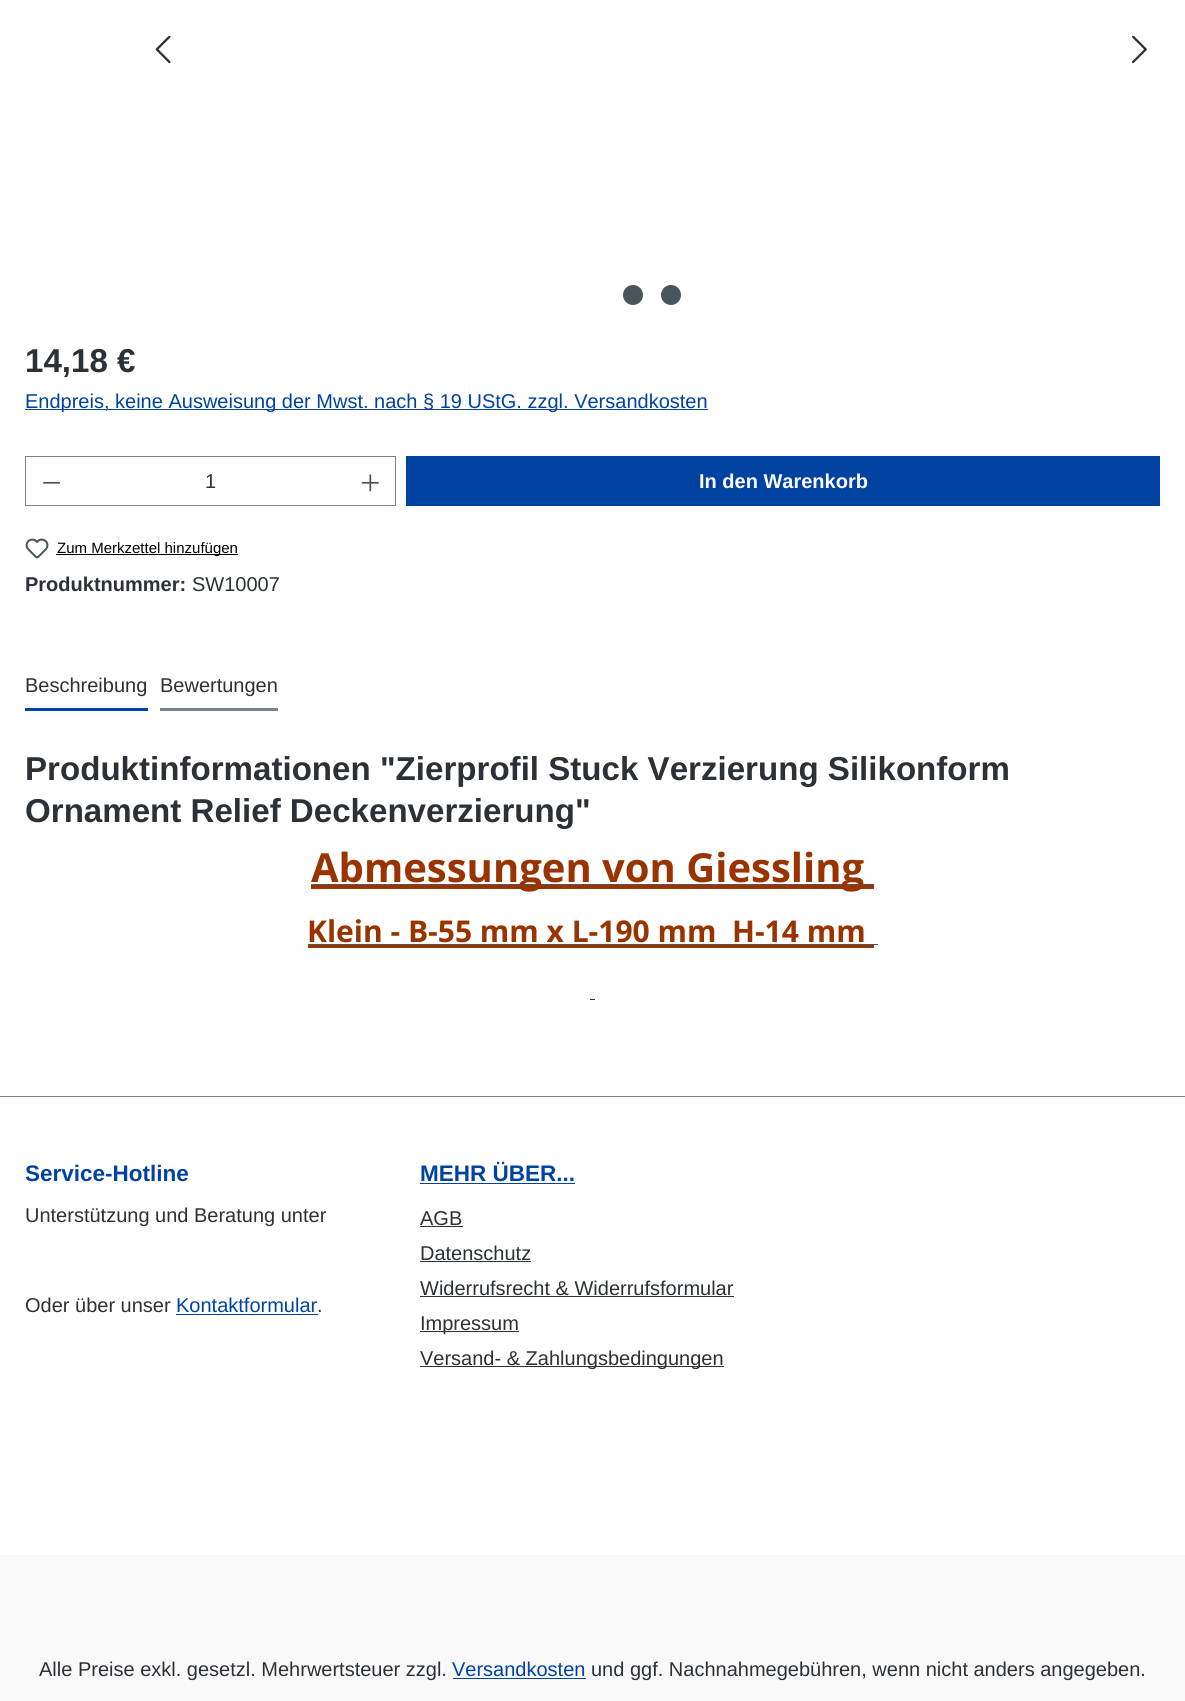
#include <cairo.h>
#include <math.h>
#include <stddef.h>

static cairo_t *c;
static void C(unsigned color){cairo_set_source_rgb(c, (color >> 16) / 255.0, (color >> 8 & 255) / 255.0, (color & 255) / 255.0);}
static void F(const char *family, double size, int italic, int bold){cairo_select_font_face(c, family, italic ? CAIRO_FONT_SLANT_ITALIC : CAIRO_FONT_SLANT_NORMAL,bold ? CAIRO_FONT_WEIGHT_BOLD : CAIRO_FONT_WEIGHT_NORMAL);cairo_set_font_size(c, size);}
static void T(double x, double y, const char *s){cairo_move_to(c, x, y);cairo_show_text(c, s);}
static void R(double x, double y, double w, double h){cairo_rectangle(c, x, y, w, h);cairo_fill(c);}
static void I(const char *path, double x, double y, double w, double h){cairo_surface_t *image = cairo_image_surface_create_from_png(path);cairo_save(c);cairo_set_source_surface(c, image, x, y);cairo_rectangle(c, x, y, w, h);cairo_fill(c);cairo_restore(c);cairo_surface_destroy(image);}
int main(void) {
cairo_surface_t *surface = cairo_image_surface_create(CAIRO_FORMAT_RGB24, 1185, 1701);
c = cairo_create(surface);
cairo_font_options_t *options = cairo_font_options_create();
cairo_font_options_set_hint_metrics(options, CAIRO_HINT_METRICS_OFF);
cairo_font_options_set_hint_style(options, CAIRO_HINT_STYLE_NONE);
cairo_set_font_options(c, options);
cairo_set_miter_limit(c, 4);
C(0xffffff);
cairo_paint(c);
I("1.png",155,36,16,28);
I("2.png",1132,36,15,28);
C(0x4a545b);
cairo_arc(c,633,295,10,0,2 * M_PI);
cairo_fill(c);
cairo_arc(c,671,295,10,0,2 * M_PI);
cairo_fill(c);
F("Liberation Sans",33.1,0,1);
C(0x2b3136);
T(25,372,"14,18 €");
C(0x0042a0);
R(25,409,683,1);
F("Liberation Sans",20,0,0);
T(25,408,"Endpreis, keine Ausweisung der Mwst. nach § 19 UStG. zzgl. Versandkosten");
C(0x798490);
R(25,456,371,1);
R(25,505,321,1);
R(25,456,1,50);
I("3.png",43,481,18,3);
C(0x2b3136);
T(205,488,"1");
C(0x798490);
R(395,456,1,50);
R(345,505,51,1);
I("4.png",361,474,18,18);
C(0x0042a0);
R(406,456,754,50);
F("Liberation Sans",20,0,1);
C(0xffffff);
T(699,488,"In den Warenkorb");
I("5.png",25,538,24,21);
C(0x000000);
R(56,554,182,1);
F("Liberation Sans",15,0,0);
T(57,553,"Zum Merkzettel hinzufügen");
F("Liberation Sans",20,0,1);
C(0x2b3136);
T(25,591,"Produktnummer:");
F("Liberation Sans",20,0,0);
T(192,591,"SW10007");
C(0x0042a0);
R(25,708,123,3);
C(0x2b3136);
T(25,692,"Beschreibung");
C(0x798490);
R(160,708,118,3);
C(0x2b3136);
T(160,692,"Bewertungen");
F("Liberation Sans",33.1,0,1);
T(25,780,"Produktinformationen \"Zierprofil Stuck Verzierung Silikonform");
T(25,822,"Ornament Relief Deckenverzierung\"");
C(0x993300);
R(311,885,563,4);
C(0x555555);
R(311,884,563,1);
F("Open Sans",40,0,1);
C(0x993300);
T(311,882,"Abmessungen von Giessling");
F("Open Sans",30,0,1);
T(307,942,"Klein - B-55 mm x L-190 mm");
R(308,945,566,3);
C(0x555555);
R(308,944,570,1);
C(0x993300);
T(732,942,"H-14 mm");
C(0x2b3136);
R(590,999,5,1);
C(0x798490);
R(0,1096,1185,1);
F("Liberation Sans",22.5,0,1);
C(0x0042a0);
T(25,1181,"Service-Hotline");
F("Liberation Sans",20,0,0);
C(0x2b3136);
T(25,1222,"Unterstützung und Beratung unter");
T(25,1312,"Oder über unser");
C(0x0042a0);
T(176,1312,"Kontaktformular");
R(176,1314,142,1);
C(0x2b3136);
T(317,1312,".");
F("Liberation Sans",22.5,0,1);
C(0x0042a0);
T(420,1181,"MEHR ÜBER...");
R(420,1183,155,1);
F("Liberation Sans",20,0,0);
C(0x2b3136);
T(420,1225,"AGB");
R(420,1226,43,1);
T(420,1260,"Datenschutz");
R(420,1261,111,1);
T(420,1295,"Widerrufsrecht & Widerrufsformular");
R(420,1296,314,1);
R(420,1331,99,1);
T(420,1330,"Impressum");
R(420,1366,304,1);
T(420,1365,"Versand- & Zahlungsbedingungen");
C(0xf9f9f9);
R(0,1555,1185,146);
C(0x2b3136);
T(39,1676,"Alle Preise exkl. gesetzl. Mehrwertsteuer zzgl.");
C(0x0042a0);
T(452,1676,"Versandkosten");
R(453,1678,133,1);
C(0x2b3136);
T(591,1676,"und ggf. Nachnahmegebühren, wenn nicht anders angegeben.");
cairo_surface_write_to_png(surface, "o.png");
cairo_font_options_destroy(options);
cairo_destroy(c);
cairo_surface_destroy(surface);
return 0;
}
